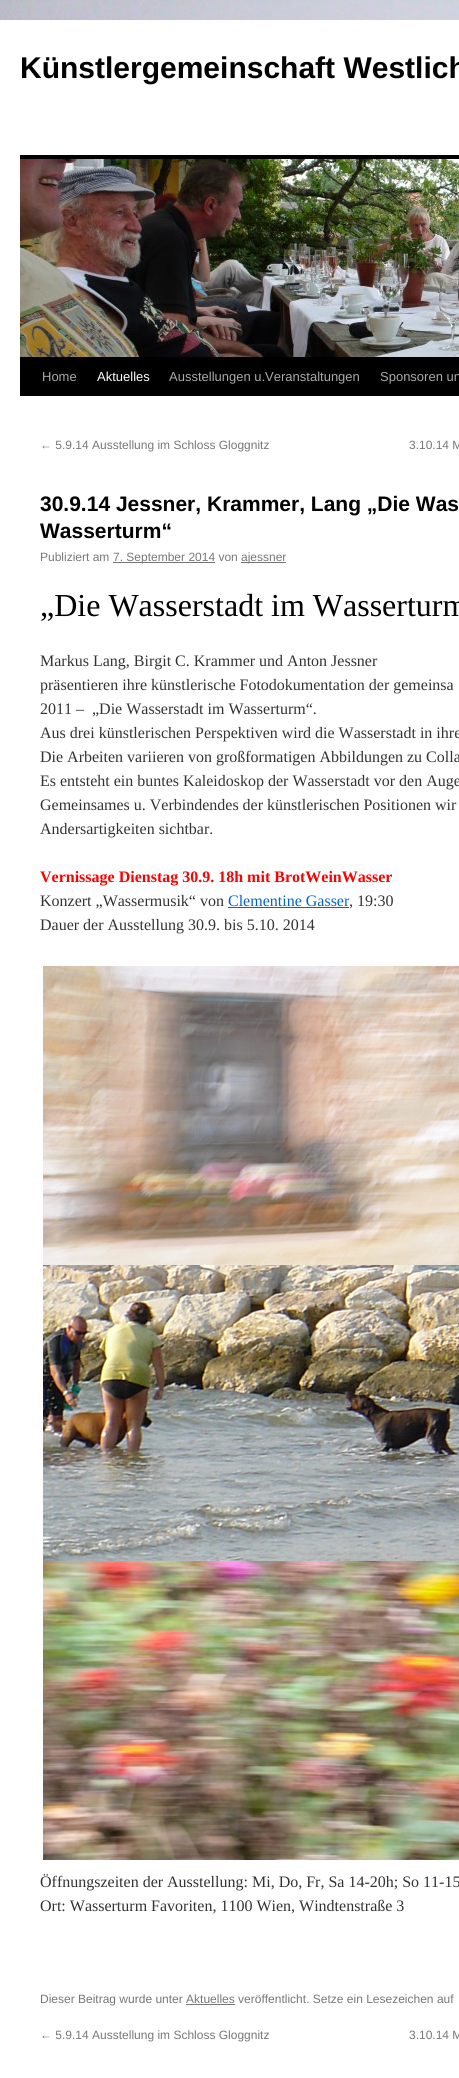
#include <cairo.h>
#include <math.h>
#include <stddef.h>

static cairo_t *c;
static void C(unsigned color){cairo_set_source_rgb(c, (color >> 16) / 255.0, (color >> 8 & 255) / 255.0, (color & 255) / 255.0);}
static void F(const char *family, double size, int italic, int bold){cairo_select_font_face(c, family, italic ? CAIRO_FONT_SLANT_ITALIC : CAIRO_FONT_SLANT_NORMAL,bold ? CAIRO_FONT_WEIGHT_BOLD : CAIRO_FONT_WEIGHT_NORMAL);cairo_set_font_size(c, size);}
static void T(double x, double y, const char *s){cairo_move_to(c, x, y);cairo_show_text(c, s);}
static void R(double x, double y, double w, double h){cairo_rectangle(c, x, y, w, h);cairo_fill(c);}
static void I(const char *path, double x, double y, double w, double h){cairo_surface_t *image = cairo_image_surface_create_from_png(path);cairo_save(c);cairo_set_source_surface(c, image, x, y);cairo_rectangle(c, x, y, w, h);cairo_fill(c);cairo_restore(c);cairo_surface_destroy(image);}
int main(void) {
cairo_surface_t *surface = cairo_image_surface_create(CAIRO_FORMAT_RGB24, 459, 2078);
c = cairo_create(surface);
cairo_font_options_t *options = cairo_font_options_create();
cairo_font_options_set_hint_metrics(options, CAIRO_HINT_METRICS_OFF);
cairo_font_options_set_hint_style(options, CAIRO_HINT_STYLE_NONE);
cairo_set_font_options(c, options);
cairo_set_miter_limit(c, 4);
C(0xffffff);
cairo_paint(c);
I("1.png",0,0,459,20);
F("Liberation Sans",30,0,1);
C(0x000000);
T(20,78,"Künstlergemeinschaft Westlich");
R(20,155,439,4);
R(20,357,439,39);
I("2.png",20,159,439,198);
F("Liberation Sans",13,0,0);
C(0xaaaaaa);
T(42,381,"Home");
C(0xffffff);
T(97,381,"Aktuelles");
C(0xaaaaaa);
T(169,381,"Ausstellungen u.Veranstaltungen");
T(380,381,"Sponsoren un");
F("Liberation Sans",12,0,0);
C(0x777777);
T(40,449,"← 5.9.14 Ausstellung im Schloss Gloggnitz");
T(409,449,"3.10.14 M");
F("Liberation Sans",21,0,1);
C(0x000000);
T(40,511,"30.9.14 Jessner, Krammer, Lang „Die Was");
T(40,538,"Wasserturm“");
F("Liberation Sans",12,0,0);
C(0x777777);
T(40,561,"Publiziert am");
R(113,562,102,1);
T(113,561,"7. September 2014 von");
R(241,562,45,1);
T(241,561,"ajessner");
F("Liberation Serif",32,0,0);
C(0x000000);
T(40,616,"„Die Wasserstadt im Wasserturm");
F("Liberation Serif",16,0,0);
C(0x333333);
T(40,666,"Markus Lang, Birgit C. Krammer und Anton Jessner");
T(40,690,"präsentieren ihre künstlerische Fotodokumentation der gemeinsa");
T(40,714,"2011 –  „Die Wasserstadt im Wasserturm“.");
T(40,738,"Aus drei künstlerischen Perspektiven wird die Wasserstadt in ihre");
T(40,762,"Die Arbeiten variieren von großformatigen Abbildungen zu Colla");
T(40,786,"Es entsteht ein buntes Kaleidoskop der Wasserstadt vor den Auge");
T(40,810,"Gemeinsames u. Verbindendes der künstlerischen Positionen wir");
T(40,834,"Andersartigkeiten sichtbar.");
F("Liberation Serif",16,0,1);
C(0xff0000);
T(40,882,"Vernissage Dienstag 30.9. 18h mit BrotWeinWasser");
F("Liberation Serif",16,0,0);
C(0x333333);
T(40,906,"Konzert „Wassermusik“ von");
C(0x0066cc);
T(228,906,"Clementine Gasser");
R(228,907,121,1);
C(0x333333);
T(349,906,", 19:30");
T(40,930,"Dauer der Ausstellung 30.9. bis 5.10. 2014");
I("3.png",43,966,416,894);
T(40,1887,"Öffnungszeiten der Ausstellung: Mi, Do, Fr, Sa 14-20h; So 11-15");
T(40,1911,"Ort: Wasserturm Favoriten, 1100 Wien, Windtenstraße 3");
F("Liberation Sans",12,0,0);
C(0x777777);
T(40,2003,"Dieser Beitrag wurde unter Aktuelles veröffentlicht. Setze ein Lesezeichen auf");
R(186,2004,49,1);
T(40,2039,"← 5.9.14 Ausstellung im Schloss Gloggnitz");
T(409,2039,"3.10.14 M");
cairo_surface_write_to_png(surface, "o.png");
cairo_font_options_destroy(options);
cairo_destroy(c);
cairo_surface_destroy(surface);
return 0;
}
